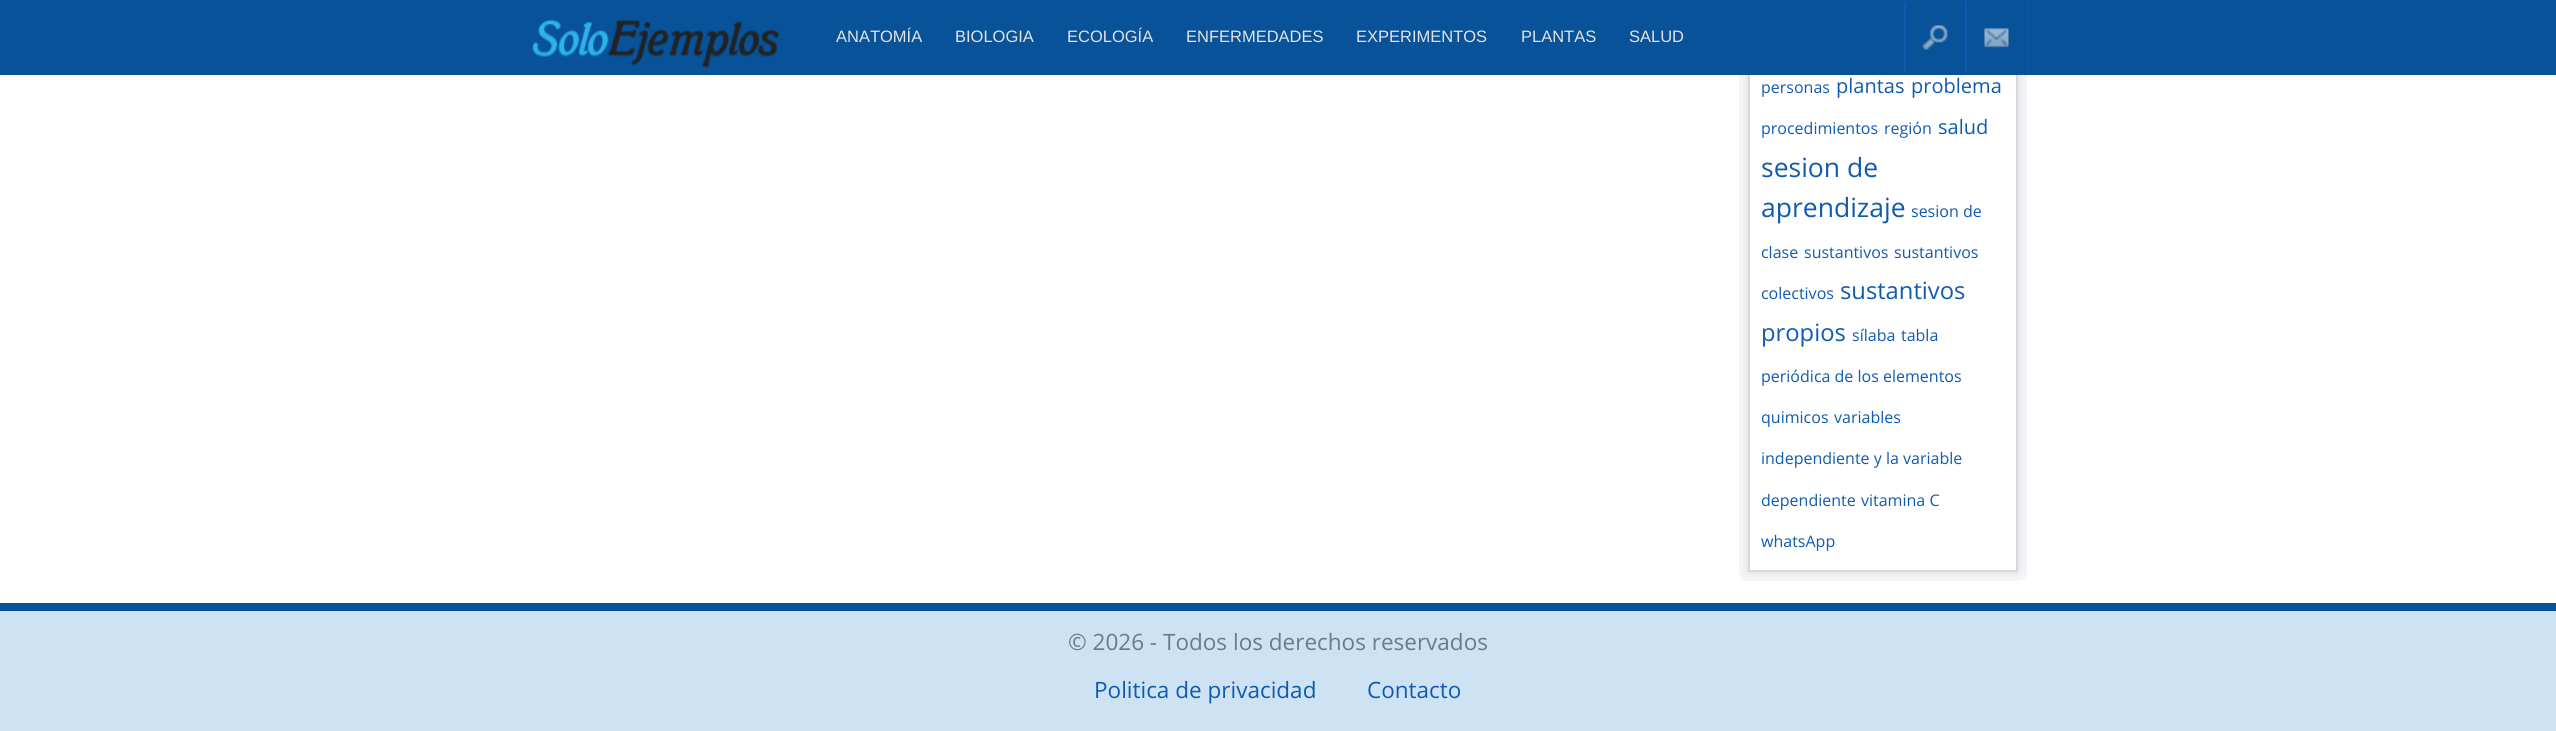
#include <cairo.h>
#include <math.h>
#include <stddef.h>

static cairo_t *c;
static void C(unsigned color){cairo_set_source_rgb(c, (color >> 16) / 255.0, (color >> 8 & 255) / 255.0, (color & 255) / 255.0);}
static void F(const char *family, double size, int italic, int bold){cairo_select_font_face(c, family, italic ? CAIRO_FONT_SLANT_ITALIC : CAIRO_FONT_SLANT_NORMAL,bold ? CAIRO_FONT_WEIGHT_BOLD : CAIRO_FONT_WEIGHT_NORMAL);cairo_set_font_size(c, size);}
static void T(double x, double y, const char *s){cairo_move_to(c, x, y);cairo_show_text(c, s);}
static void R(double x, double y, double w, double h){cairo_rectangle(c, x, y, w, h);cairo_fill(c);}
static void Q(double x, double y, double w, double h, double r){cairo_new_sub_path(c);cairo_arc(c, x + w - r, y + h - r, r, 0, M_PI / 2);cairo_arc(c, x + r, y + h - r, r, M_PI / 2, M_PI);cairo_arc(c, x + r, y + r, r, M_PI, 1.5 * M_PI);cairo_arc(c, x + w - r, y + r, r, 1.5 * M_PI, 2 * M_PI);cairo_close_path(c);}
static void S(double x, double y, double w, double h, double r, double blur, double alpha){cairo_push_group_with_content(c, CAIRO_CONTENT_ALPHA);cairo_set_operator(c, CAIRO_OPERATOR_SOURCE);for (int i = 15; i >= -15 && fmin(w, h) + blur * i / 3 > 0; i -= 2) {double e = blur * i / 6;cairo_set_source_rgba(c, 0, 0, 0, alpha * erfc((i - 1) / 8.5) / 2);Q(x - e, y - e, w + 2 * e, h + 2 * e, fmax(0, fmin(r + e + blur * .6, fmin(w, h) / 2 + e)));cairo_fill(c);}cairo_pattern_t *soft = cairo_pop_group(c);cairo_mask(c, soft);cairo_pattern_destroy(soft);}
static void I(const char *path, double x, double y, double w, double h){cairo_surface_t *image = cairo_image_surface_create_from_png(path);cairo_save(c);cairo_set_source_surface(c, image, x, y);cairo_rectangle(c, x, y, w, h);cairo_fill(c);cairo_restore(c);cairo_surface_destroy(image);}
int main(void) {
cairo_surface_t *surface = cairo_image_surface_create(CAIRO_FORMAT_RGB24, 2556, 731);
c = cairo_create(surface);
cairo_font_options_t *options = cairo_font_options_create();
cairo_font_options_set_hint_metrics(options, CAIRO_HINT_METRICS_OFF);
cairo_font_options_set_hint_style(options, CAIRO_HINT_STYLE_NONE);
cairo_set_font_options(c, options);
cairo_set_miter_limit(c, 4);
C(0xffffff);
cairo_paint(c);
C(0xf3f6f9);
Q(1739,-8,288,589,8);
cairo_fill(c);
C(0xdddddd);
S(1748,-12,270,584,0,4,1);
C(0xffffff);
R(1750,75,266,495);
cairo_rectangle(c,1749,-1,268,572);
C(0xdad7d7);
cairo_stroke(c);
C(0x075298);
R(0,0,2556,75);
I("1.png",532,19,248,49);
F("Liberation Sans",16.5,0,0);
C(0xe3e3e3);
T(836,42,"ANATOMÍA");
T(955,42,"BIOLOGIA");
T(1067,42,"ECOLOGÍA");
T(1186,42,"ENFERMEDADES");
T(1356,42,"EXPERIMENTOS");
T(1521,42,"PLANTAS");
T(1629,42,"SALUD");
I("2.png",1922,25,26,25);
C(0x095baf);
R(1965,2,2,70);
R(1904,2,2,70);
I("3.png",1984,27,25,21);
R(2027,2,1,70);
F("Open Sans",16,0,0);
C(0x105bb0);
T(1761,93,"personas");
F("Open Sans",20,0,0);
T(1836,93,"plantas");
T(1911,93,"problema");
F("Open Sans",16,0,0);
T(1761,134,"procedimientos");
T(1884,134,"región");
F("Open Sans",20,0,0);
T(1938,134,"salud");
F("Open Sans",26.5,0,0);
T(1761,177,"sesion de");
T(1761,217,"aprendizaje");
F("Open Sans",16,0,0);
T(1911,217,"sesion de");
T(1761,258,"clase");
T(1804,258,"sustantivos");
T(1894,258,"sustantivos");
T(1761,299,"colectivos");
F("Open Sans",23.75,0,0);
T(1840,299,"sustantivos");
T(1761,341,"propios");
F("Open Sans",16,0,0);
T(1852,341,"sílaba");
T(1901,341,"tabla");
T(1761,382,"periódica de los elementos");
T(1761,423,"quimicos");
T(1834,423,"variables");
T(1761,464,"independiente y la variable");
T(1761,506,"dependiente");
T(1861,506,"vitamina C");
T(1761,547,"whatsApp");
C(0xcde2f3);
R(0,611,2556,120);
C(0x075298);
R(0,603,2556,8);
F("Open Sans",22.5,0,0);
C(0x6c7b86);
T(1068,650,"© 2026 - Todos los derechos reservados");
C(0x105bb0);
T(1094,698,"Politica de privacidad");
T(1367,698,"Contacto");
cairo_surface_write_to_png(surface, "o.png");
cairo_font_options_destroy(options);
cairo_destroy(c);
cairo_surface_destroy(surface);
return 0;
}
